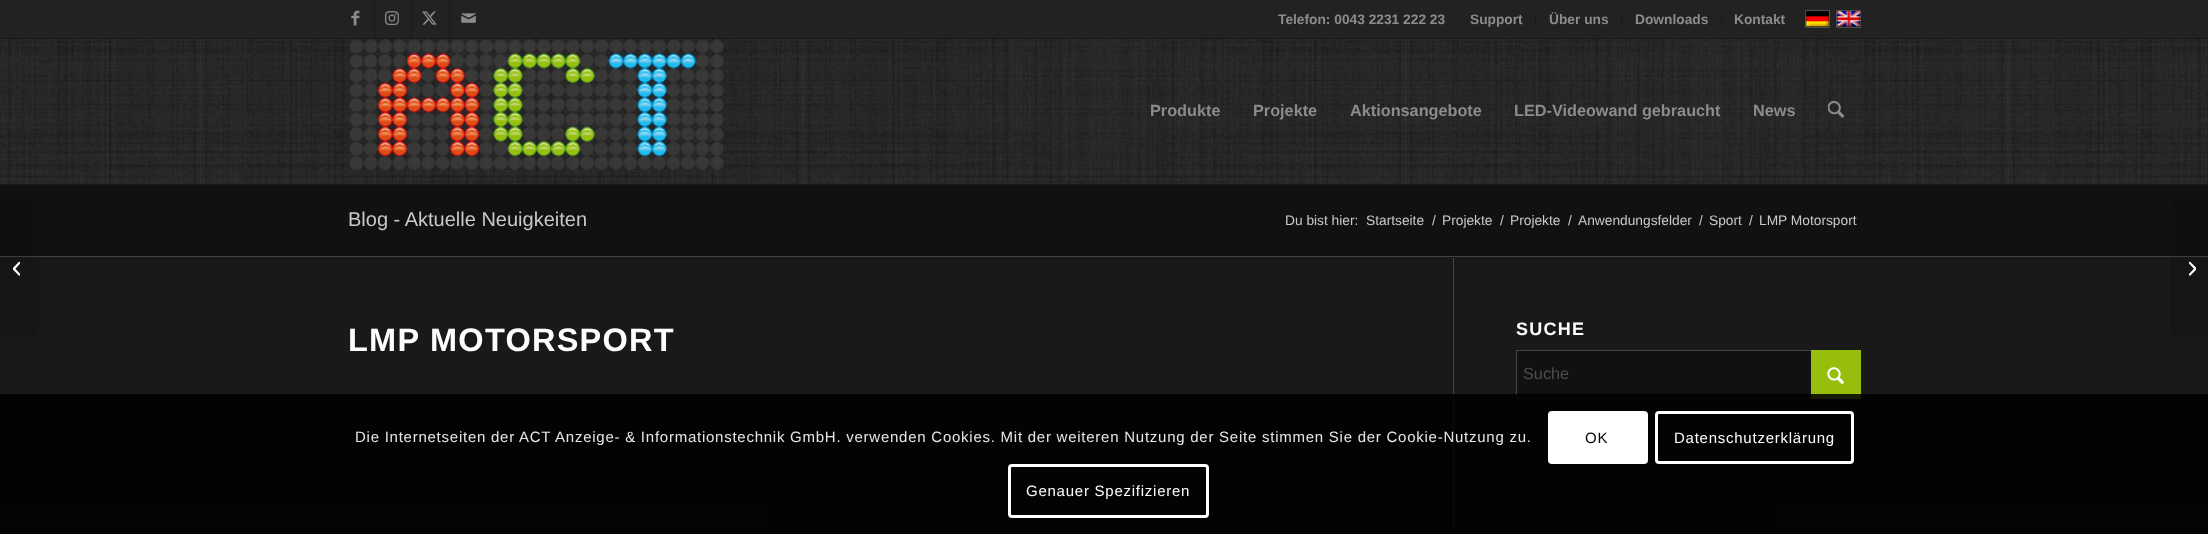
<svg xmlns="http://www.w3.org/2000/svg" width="2208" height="534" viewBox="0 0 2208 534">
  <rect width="100%" height="100%" fill="#191919"/>
  <rect x="0" y="0" width="2208" height="38" fill="#222222"/>
  <rect x="374" y="0" width="1" height="38" fill="#191919"/>
  <image x="351" y="10" width="9" height="16" href="img1.png"/>
  <rect x="411" y="0" width="1" height="38" fill="#191919"/>
  <image x="385" y="11" width="14" height="14" href="img2.png"/>
  <rect x="449" y="0" width="1" height="38" fill="#191919"/>
  <image x="422" y="11" width="15" height="14" href="img3.png"/>
  <image x="461" y="13" width="15" height="10" href="img4.png"/>
  <text x="1278" y="24" font-family="Liberation Sans" font-size="13.75" font-weight="bold" fill="#8c8c8c">Telefon: 0043 2231 222 23</text>
  <rect x="1535" y="13" width="1" height="12" fill="#191919"/>
  <text x="1470" y="24" font-family="Liberation Sans" font-size="13.75" font-weight="bold" fill="#8c8c8c">Support</text>
  <rect x="1621" y="13" width="1" height="12" fill="#191919"/>
  <text x="1549" y="24" font-family="Liberation Sans" font-size="13.75" font-weight="bold" fill="#8c8c8c">Über uns</text>
  <rect x="1721" y="13" width="1" height="12" fill="#191919"/>
  <text x="1635" y="24" font-family="Liberation Sans" font-size="13.75" font-weight="bold" fill="#8c8c8c">Downloads</text>
  <text x="1734" y="24" font-family="Liberation Sans" font-size="13.75" font-weight="bold" fill="#8c8c8c">Kontakt</text>
  <rect x="1805.5" y="10.5" width="24" height="17" fill="none" stroke="#4e4e4e"/>
  <image x="1805" y="11" width="24" height="16" href="img5.png"/>
  <rect x="1836.5" y="10.5" width="24" height="17" fill="none" stroke="#4e4e4e"/>
  <image x="1836" y="11" width="25" height="16" href="img6.png"/>
  <image x="0" y="39" width="2208" height="145" href="img7.png"/>
  <image x="349" y="39" width="375" height="131" href="img8.png"/>
  <text x="1150" y="116" font-family="Liberation Sans" font-size="16.25" font-weight="bold" fill="#8c8c8c">Produkte</text>
  <text x="1253" y="116" font-family="Liberation Sans" font-size="16.25" font-weight="bold" fill="#8c8c8c">Projekte</text>
  <text x="1350" y="116" font-family="Liberation Sans" font-size="16.25" font-weight="bold" fill="#8c8c8c">Aktionsangebote</text>
  <text x="1514" y="116" font-family="Liberation Sans" font-size="16.25" font-weight="bold" fill="#8c8c8c">LED-Videowand gebraucht</text>
  <text x="1753" y="116" font-family="Liberation Sans" font-size="16.25" font-weight="bold" fill="#8c8c8c">News</text>
  <image x="1828" y="101" width="17" height="17" href="img9.png"/>
  <rect x="0" y="185" width="2208" height="71" fill="#111111"/>
  <rect x="0" y="256" width="2208" height="1" fill="#444444"/>
  <path d="M0 199H34C37 199 39 201 39 204V331C39 334 37 336 34 336H0Z" fill="#000000" fill-opacity="0.1"/>
  <image x="13" y="261" width="7" height="15" href="img10.png"/>
  <text x="348" y="226" font-family="Liberation Sans" font-size="20" fill="#c9c9c9">Blog - Aktuelle Neuigkeiten</text>
  <text x="1285" y="225" font-family="Liberation Sans" font-size="13.75" fill="#c9c9c9">Du bist hier:</text>
  <text x="1366" y="225" font-family="Liberation Sans" font-size="13.75" fill="#c9c9c9">Startseite</text>
  <text x="1432" y="225" font-family="Liberation Sans" font-size="13.75" fill="#c9c9c9">/</text>
  <text x="1442" y="225" font-family="Liberation Sans" font-size="13.75" fill="#c9c9c9">Projekte</text>
  <text x="1500" y="225" font-family="Liberation Sans" font-size="13.75" fill="#c9c9c9">/</text>
  <text x="1510" y="225" font-family="Liberation Sans" font-size="13.75" fill="#c9c9c9">Projekte</text>
  <text x="1568" y="225" font-family="Liberation Sans" font-size="13.75" fill="#c9c9c9">/</text>
  <text x="1578" y="225" font-family="Liberation Sans" font-size="13.75" fill="#c9c9c9">Anwendungsfelder</text>
  <text x="1699" y="225" font-family="Liberation Sans" font-size="13.75" fill="#c9c9c9">/</text>
  <text x="1709" y="225" font-family="Liberation Sans" font-size="13.75" fill="#c9c9c9">Sport</text>
  <text x="1749" y="225" font-family="Liberation Sans" font-size="13.75" fill="#c9c9c9">/</text>
  <text x="1759" y="225" font-family="Liberation Sans" font-size="13.75" fill="#c9c9c9">LMP Motorsport</text>
  <rect x="1453" y="258" width="1" height="276" fill="#444444"/>
  <text x="348" y="351" font-family="Liberation Sans" font-size="32.5" font-weight="bold" letter-spacing="1.25" fill="#fdfdfd">LMP MOTORSPORT</text>
  <text x="1516" y="335" font-family="Liberation Sans" font-size="18" font-weight="bold" letter-spacing="1.25" fill="#fdfdfd">SUCHE</text>
  <rect x="1517" y="351" width="294" height="47" fill="#111111"/>
  <rect x="1516.5" y="350.5" width="344" height="48" fill="none" stroke="#444444"/>
  <text x="1523" y="379" font-family="Liberation Sans" font-size="16.25" fill="#4e4e4e">Suche</text>
  <rect x="1811" y="350" width="50" height="49" fill="#98be0d"/>
  <image x="1827" y="367" width="17" height="17" href="img11.png"/>
  <rect x="1516.5" y="533.5" width="142" height="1" fill="none" stroke="#444444"/>
  <rect x="1660.5" y="533.5" width="114" height="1" fill="none" stroke="#444444"/>
  <path d="M2175 199H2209V336H2175C2172 336 2170 334 2170 331V204C2170 201 2172 199 2175 199Z" fill="#000000" fill-opacity="0.1"/>
  <image x="2189" y="261" width="7" height="15" href="img12.png"/>
  <rect x="0" y="394" width="2208" height="140" fill="#000000" fill-opacity="0.85"/>
  <text x="355" y="442" font-family="Liberation Sans" font-size="15" letter-spacing="0.75" fill="#e6e6e6">Die Internetseiten der ACT Anzeige- &amp; Informationstechnik GmbH. verwenden Cookies. Mit der weiteren Nutzung der Seite stimmen Sie der Cookie-Nutzung zu.</text>
  <rect x="1548" y="411" width="100" height="53" rx="4" fill="#ffffff"/>
  <text x="1585" y="443" font-family="Liberation Sans" font-size="15" letter-spacing="0.75" fill="#000000">OK</text>
  <rect x="1656.5" y="412.5" width="196" height="50" rx="2.5" fill="none" stroke="#ffffff" stroke-width="3"/>
  <text x="1674" y="443" font-family="Liberation Sans" font-size="15" letter-spacing="0.75" fill="#fdfdfd">Datenschutzerklärung</text>
  <rect x="1009.5" y="465.5" width="198" height="51" rx="2.5" fill="none" stroke="#ffffff" stroke-width="3"/>
  <text x="1026" y="496" font-family="Liberation Sans" font-size="15" letter-spacing="0.75" fill="#fdfdfd">Genauer Spezifizieren</text>
</svg>
